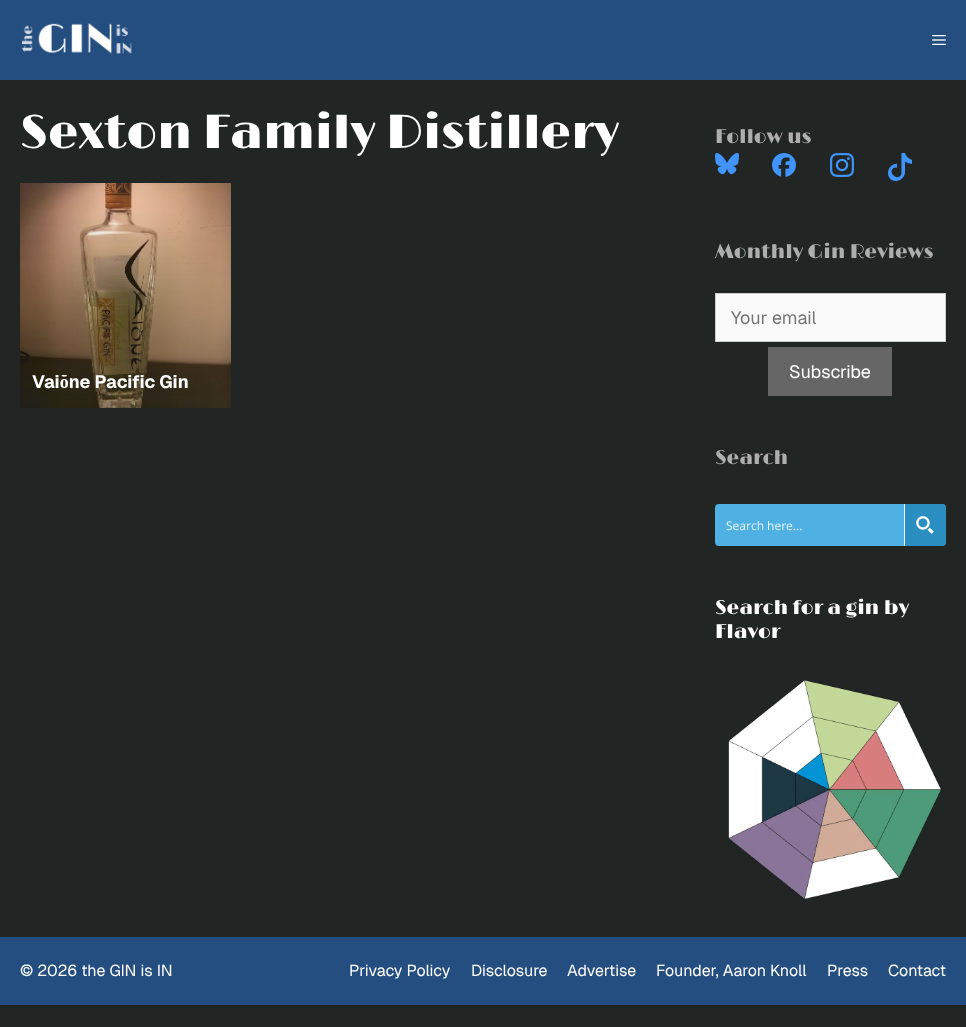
<svg xmlns="http://www.w3.org/2000/svg" width="966" height="1027" viewBox="0 0 966 1027">
  <rect width="100%" height="100%" fill="#212624"/>
  <rect x="0" y="0" width="966" height="80" fill="#254e80"/>
  <image x="21" y="23" width="111" height="31" href="img1.png"/>
  <image x="932" y="35" width="14" height="10" href="img2.png"/>
  <text x="20" y="148" font-family="Limelight" font-size="48" font-weight="300" fill="#ffffff">Sexton Family Distillery</text>
  <image x="20" y="183" width="211" height="225" href="img3.png"/>
  <text x="32" y="388" font-family="Geist" font-size="18" font-weight="bold" fill="#ffffff">Vaiŏne Pacific Gin</text>
  <text x="715" y="143" font-family="Limelight" font-size="20" font-weight="300" fill="#aeaeae">Follow us</text>
  <image x="715" y="153" width="24" height="22" href="img4.png"/>
  <image x="772" y="153" width="24" height="24" href="img5.png"/>
  <image x="830" y="153" width="24" height="24" href="img6.png"/>
  <image x="888" y="153" width="24" height="28" href="img7.png"/>
  <text x="715" y="258" font-family="Limelight" font-size="20" font-weight="300" fill="#aeaeae">Monthly Gin Reviews</text>
  <rect x="715.5" y="293.5" width="230" height="48" fill="#fafafa" stroke="#cccccc"/>
  <text x="731" y="324" font-family="Geist" font-size="18" fill="#757575">Your email</text>
  <rect x="768" y="347" width="124" height="49" fill="#666666"/>
  <text x="789" y="378" font-family="Geist" font-size="18" fill="#ffffff">Subscribe</text>
  <text x="715" y="464" font-family="Limelight" font-size="20" font-weight="300" fill="#aeaeae">Search</text>
  <rect x="715" y="504" width="231" height="42" rx="4" fill="#4fb1e3"/>
  <text x="726" y="530" font-family="Open Sans" font-size="12" fill="#e5f3fb">Search here...</text>
  <path d="M904 504H942C944 504 946 506 946 508V542C946 544 944 546 942 546H904Z" fill="#2b8ec1"/>
  <rect x="904" y="504" width="1" height="42" fill="#f1f1f1"/>
  <image x="916" y="516" width="18" height="18" href="img8.png"/>
  <text x="715" y="614" font-family="Limelight" font-size="20" font-weight="300" fill="#ffffff">Search for a gin by</text>
  <text x="715" y="638" font-family="Limelight" font-size="20" font-weight="300" fill="#ffffff">Flavor</text>
  <image x="728" y="680" width="214" height="219" href="img9.png"/>
  <rect x="0" y="937" width="966" height="68" fill="#254e80"/>
  <text x="20" y="976" font-family="Geist" font-size="16" fill="#ffffff">© 2026 the GIN is IN</text>
  <text x="349" y="976" font-family="Geist" font-size="16" fill="#ffffff">Privacy Policy</text>
  <text x="471" y="976" font-family="Geist" font-size="16" fill="#ffffff">Disclosure</text>
  <text x="567" y="976" font-family="Geist" font-size="16" fill="#ffffff">Advertise</text>
  <text x="656" y="976" font-family="Geist" font-size="16" fill="#ffffff">Founder, Aaron Knoll</text>
  <text x="827" y="976" font-family="Geist" font-size="16" fill="#ffffff">Press</text>
  <text x="888" y="976" font-family="Geist" font-size="16" fill="#ffffff">Contact</text>
</svg>
